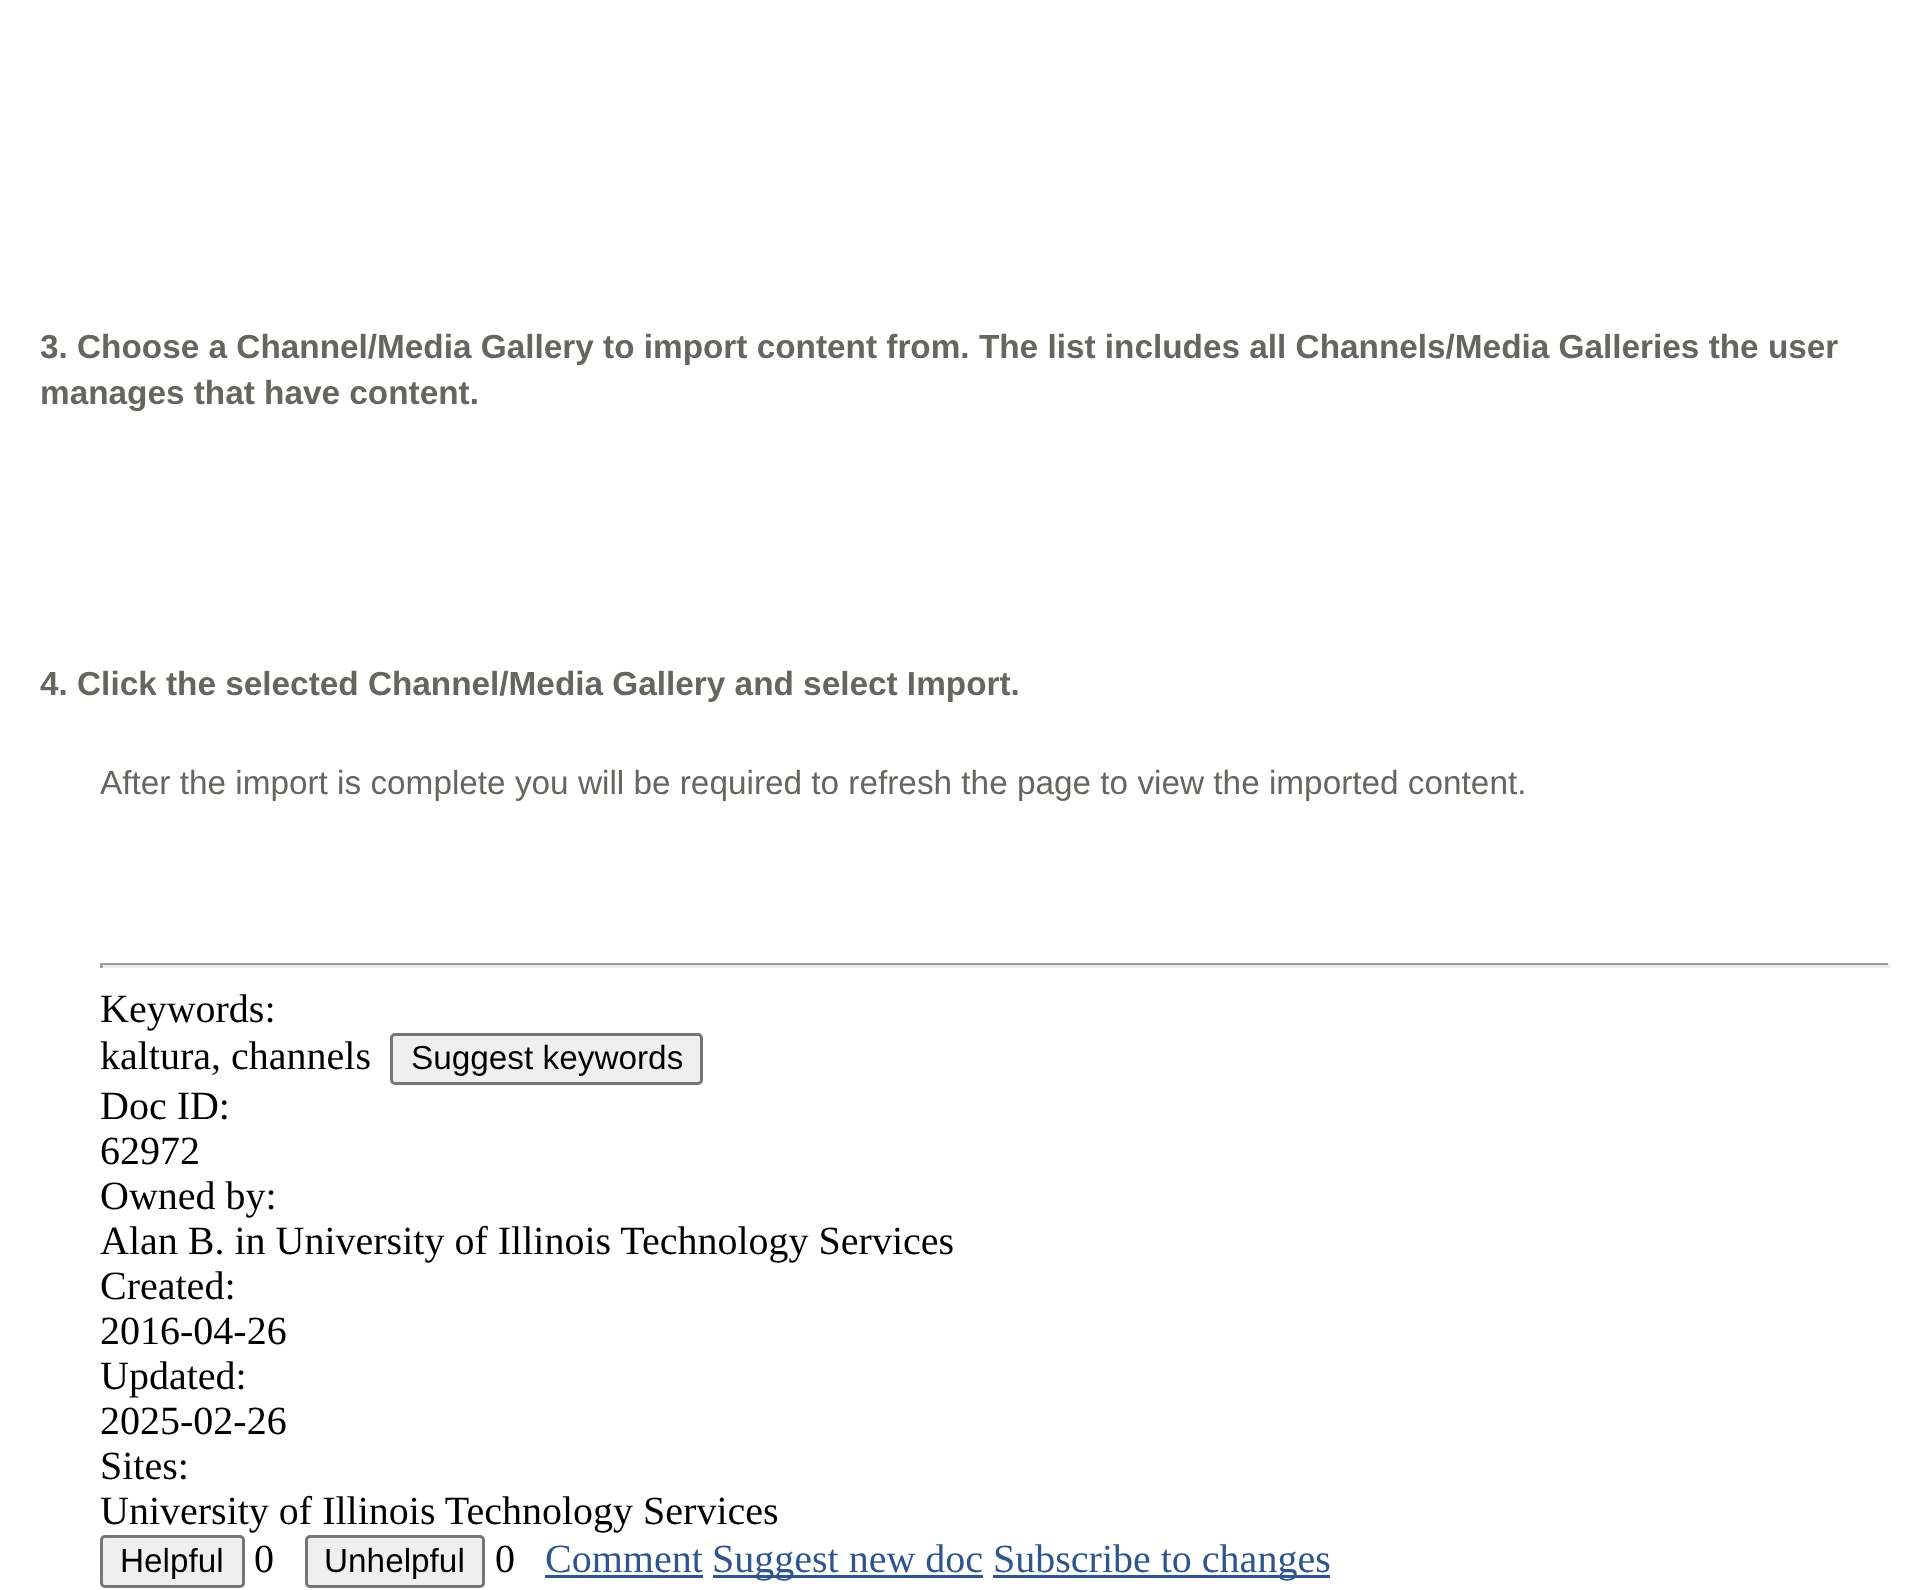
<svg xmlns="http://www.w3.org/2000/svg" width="1909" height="1590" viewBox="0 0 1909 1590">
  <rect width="100%" height="100%" fill="#ffffff"/>
  <text x="40" y="358" font-family="Liberation Sans" font-size="33.33" font-weight="bold" fill="#666560">3. Choose a Channel/Media Gallery to import content from. The list includes all Channels/Media Galleries the user</text>
  <text x="40" y="404" font-family="Liberation Sans" font-size="33.33" font-weight="bold" fill="#666560">manages that have content.</text>
  <text x="40" y="695" font-family="Liberation Sans" font-size="33.33" font-weight="bold" fill="#666560">4. Click the selected Channel/Media Gallery and select Import.</text>
  <text x="100" y="794" font-family="Liberation Sans" font-size="33.33" fill="#666560">After the import is complete you will be required to refresh the page to view the imported content.</text>
  <rect x="100" y="963" width="1790" height="2" fill="#9f9f9f"/>
  <rect x="1888" y="963" width="3" height="5" fill="#eeeeee"/>
  <rect x="100" y="965" width="1790" height="3" fill="#eeeeee"/>
  <rect x="100" y="963" width="3" height="5" fill="#9f9f9f"/>
  <text x="100" y="1022" font-family="Liberation Serif" font-size="40" fill="#000000">Keywords:</text>
  <text x="100" y="1069" font-family="Liberation Serif" font-size="40" fill="#000000">kaltura, channels</text>
  <rect x="391.5" y="1034.5" width="310" height="49" rx="3.5" fill="#efefef" stroke="#767676" stroke-width="3"/>
  <text x="411" y="1069" font-family="Liberation Sans" font-size="33.33" fill="#000000">Suggest keywords</text>
  <text x="100" y="1119" font-family="Liberation Serif" font-size="40" fill="#000000">Doc ID:</text>
  <text x="100" y="1164" font-family="Liberation Serif" font-size="40" fill="#000000">62972</text>
  <text x="100" y="1209" font-family="Liberation Serif" font-size="40" fill="#000000">Owned by:</text>
  <text x="100" y="1254" font-family="Liberation Serif" font-size="40" fill="#000000">Alan B. in University of Illinois Technology Services</text>
  <text x="100" y="1299" font-family="Liberation Serif" font-size="40" fill="#000000">Created:</text>
  <text x="100" y="1344" font-family="Liberation Serif" font-size="40" fill="#000000">2016-04-26</text>
  <text x="100" y="1389" font-family="Liberation Serif" font-size="40" fill="#000000">Updated:</text>
  <text x="100" y="1434" font-family="Liberation Serif" font-size="40" fill="#000000">2025-02-26</text>
  <text x="100" y="1479" font-family="Liberation Serif" font-size="40" fill="#000000">Sites:</text>
  <text x="100" y="1524" font-family="Liberation Serif" font-size="40" fill="#000000">University of Illinois Technology Services</text>
  <rect x="101.5" y="1536.5" width="142" height="50" rx="3.5" fill="#efefef" stroke="#767676" stroke-width="3"/>
  <text x="120" y="1572" font-family="Liberation Sans" font-size="33.33" fill="#000000">Helpful</text>
  <text x="254" y="1572" font-family="Liberation Serif" font-size="40" fill="#000000">0</text>
  <rect x="306.5" y="1536.5" width="177" height="50" rx="3.5" fill="#efefef" stroke="#767676" stroke-width="3"/>
  <text x="324" y="1572" font-family="Liberation Sans" font-size="33.33" fill="#000000">Unhelpful</text>
  <text x="495" y="1572" font-family="Liberation Serif" font-size="40" fill="#000000">0</text>
  <text x="545" y="1572" font-family="Liberation Serif" font-size="40" fill="#2f568c">Comment</text>
  <rect x="545" y="1575" width="158" height="3" fill="#2f568c"/>
  <rect x="713" y="1575" width="270" height="3" fill="#2f568c"/>
  <text x="712" y="1572" font-family="Liberation Serif" font-size="40" fill="#2f568c">Suggest new doc</text>
  <rect x="993" y="1575" width="337" height="3" fill="#2f568c"/>
  <text x="993" y="1572" font-family="Liberation Serif" font-size="40" fill="#2f568c">Subscribe to changes</text>
</svg>
